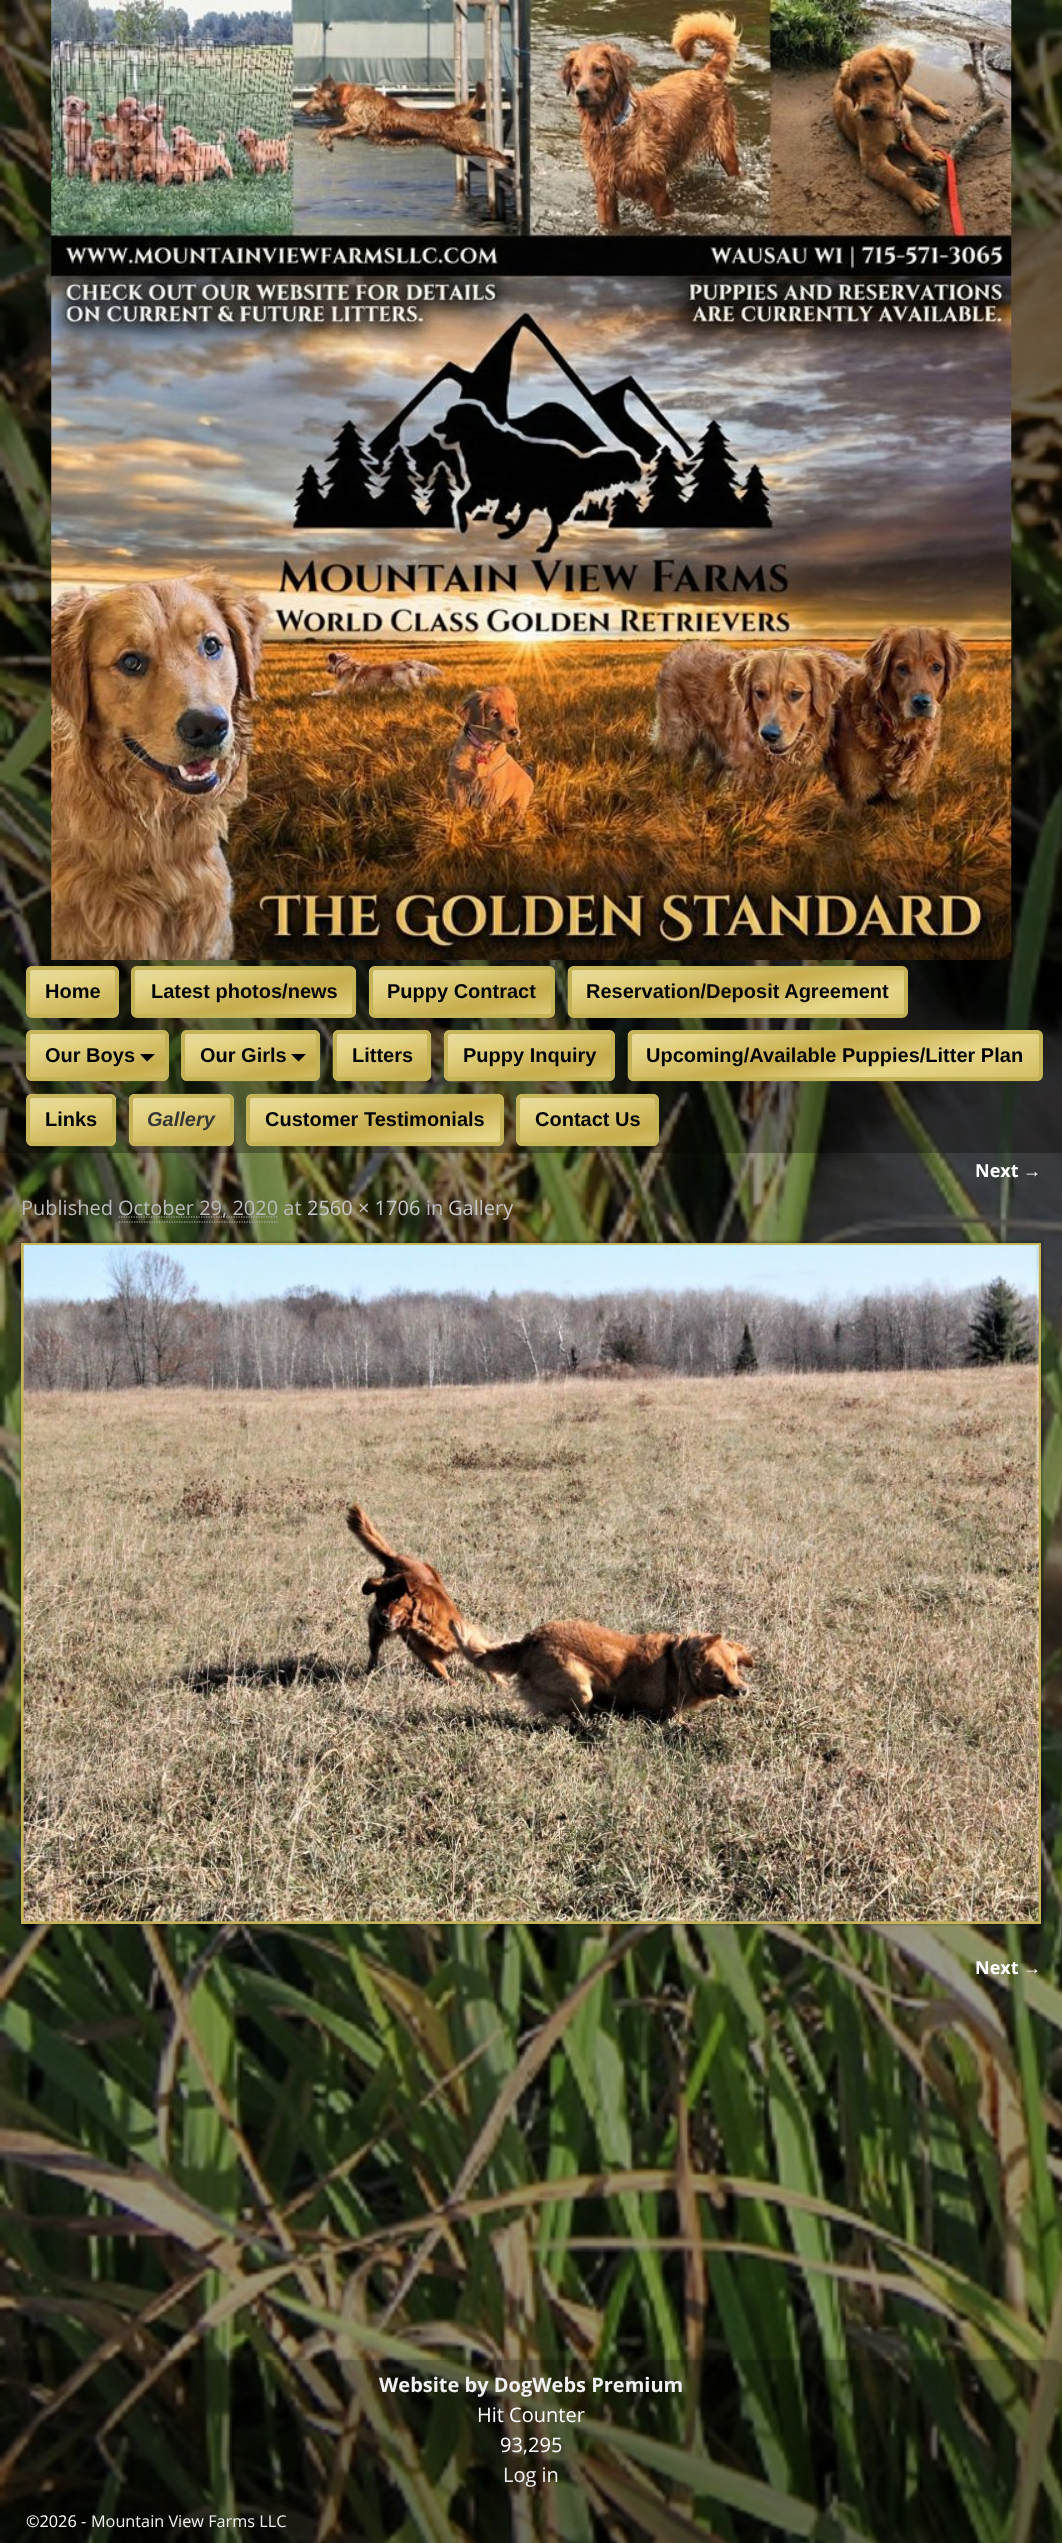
<svg xmlns="http://www.w3.org/2000/svg" width="1062" height="2543" viewBox="0 0 1062 2543">
  <defs>
    <filter id="blur1" x="-50%" y="-200%" width="200%" height="500%"><feGaussianBlur stdDeviation="1"/></filter>
    <clipPath id="clip1"><path d="M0 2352H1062V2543H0ZM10 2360H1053C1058.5 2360 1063 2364.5 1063 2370V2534C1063 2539.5 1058.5 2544 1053 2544H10C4.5 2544 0 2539.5 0 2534V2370C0 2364.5 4.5 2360 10 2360Z" clip-rule="evenodd"/></clipPath>
    <filter id="blur2" x="-50%" y="-200%" width="200%" height="500%"><feGaussianBlur stdDeviation="2"/></filter>
  </defs>
  <rect width="100%" height="100%" fill="#ffffff"/>
  <image x="0" y="0" width="1062" height="2543" href="img1.png"/>
  <rect x="0" y="0" width="1062" height="1153" fill="#000000" fill-opacity="0.3"/>
  <image x="51" y="0" width="961" height="960" href="img2.png"/>
  <image x="26" y="966" width="93" height="52" href="img3.png"/>
  <rect x="28" y="968" width="89" height="48" rx="4" fill="none" stroke="#c5b358" stroke-width="4"/>
  <text x="45" y="998" font-family="Liberation Sans" font-size="20" font-weight="bold" fill="#000000">Home</text>
  <image x="131" y="966" width="226" height="52" href="img4.png"/>
  <rect x="133" y="968" width="221" height="48" rx="4" fill="none" stroke="#c5b358" stroke-width="4"/>
  <text x="151" y="998" font-family="Liberation Sans" font-size="20" font-weight="bold" fill="#000000">Latest photos/news</text>
  <image x="368" y="966" width="187" height="52" href="img5.png"/>
  <rect x="371" y="968" width="182" height="48" rx="4" fill="none" stroke="#c5b358" stroke-width="4"/>
  <text x="387" y="998" font-family="Liberation Sans" font-size="20" font-weight="bold" fill="#000000">Puppy Contract</text>
  <image x="567" y="966" width="341" height="52" href="img6.png"/>
  <rect x="570" y="968" width="336" height="48" rx="4" fill="none" stroke="#c5b358" stroke-width="4"/>
  <text x="586" y="998" font-family="Liberation Sans" font-size="20" font-weight="bold" fill="#000000">Reservation/Deposit Agreement</text>
  <image x="26" y="1030" width="143" height="52" href="img7.png"/>
  <rect x="28" y="1032" width="139" height="47" rx="4" fill="none" stroke="#c5b358" stroke-width="4"/>
  <text x="45" y="1062" font-family="Liberation Sans" font-size="20" font-weight="bold" fill="#000000">Our Boys</text>
  <path d="M140 1054H155L147 1061.5Z" fill="#000000"/>
  <image x="181" y="1030" width="139" height="52" href="img8.png"/>
  <rect x="183" y="1032" width="135" height="47" rx="4" fill="none" stroke="#c5b358" stroke-width="4"/>
  <text x="200" y="1062" font-family="Liberation Sans" font-size="20" font-weight="bold" fill="#000000">Our Girls</text>
  <path d="M291 1054H306L298.5 1061.5Z" fill="#000000"/>
  <image x="332" y="1030" width="100" height="52" href="img9.png"/>
  <rect x="335" y="1032" width="94" height="47" rx="4" fill="none" stroke="#c5b358" stroke-width="4"/>
  <text x="352" y="1062" font-family="Liberation Sans" font-size="20" font-weight="bold" fill="#000000">Litters</text>
  <image x="443" y="1030" width="172" height="52" href="img10.png"/>
  <rect x="446" y="1032" width="167" height="47" rx="4" fill="none" stroke="#c5b358" stroke-width="4"/>
  <text x="463" y="1062" font-family="Liberation Sans" font-size="20" font-weight="bold" fill="#000000">Puppy Inquiry</text>
  <image x="627" y="1030" width="416" height="52" href="img11.png"/>
  <rect x="630" y="1032" width="411" height="47" rx="4" fill="none" stroke="#c5b358" stroke-width="4"/>
  <text x="646" y="1062" font-family="Liberation Sans" font-size="20" font-weight="bold" fill="#000000">Upcoming/Available Puppies/Litter Plan</text>
  <image x="26" y="1093" width="91" height="54" href="img12.png"/>
  <rect x="28" y="1096" width="86" height="48" rx="4" fill="none" stroke="#c5b358" stroke-width="4"/>
  <text x="45" y="1126" font-family="Liberation Sans" font-size="20" font-weight="bold" fill="#000000">Links</text>
  <image x="128" y="1093" width="106" height="54" href="img13.png"/>
  <rect x="131" y="1096" width="101" height="48" rx="4" fill="none" stroke="#c5b358" stroke-width="4"/>
  <text x="147" y="1126" font-family="Liberation Sans" font-size="20" font-weight="bold" font-style="italic" fill="#363636">Gallery</text>
  <image x="246" y="1093" width="258" height="54" href="img14.png"/>
  <rect x="248" y="1096" width="254" height="48" rx="4" fill="none" stroke="#c5b358" stroke-width="4"/>
  <text x="265" y="1126" font-family="Liberation Sans" font-size="20" font-weight="bold" fill="#000000">Customer Testimonials</text>
  <image x="516" y="1093" width="143" height="54" href="img15.png"/>
  <rect x="518" y="1096" width="139" height="48" rx="4" fill="none" stroke="#c5b358" stroke-width="4"/>
  <text x="535" y="1126" font-family="Liberation Sans" font-size="20" font-weight="bold" fill="#000000">Contact Us</text>
  <text x="975" y="1177" font-family="Open Sans" font-size="18" font-weight="bold" fill="#ffffff">Next</text>
  <text x="1023" y="1177" font-family="Liberation Sans" font-size="18" font-weight="bold" fill="#ffffff">→</text>
  <text x="21" y="1215" font-family="Open Sans" font-size="20" fill="#bbbbbb">Published</text>
  <path d="M118.5 1217H278.5" fill="none" stroke="#bbbbbb" stroke-width="1.2" stroke-dasharray="1.25 1.25"/>
  <text x="118" y="1215" font-family="Open Sans" font-size="20" fill="#bbbbbb">October 29, 2020 at</text>
  <path d="M119 1222H279" fill="none" stroke="#bbbbbb" stroke-width="1.2" stroke-dasharray="1.25 1.25"/>
  <text x="307" y="1215" font-family="Open Sans" font-size="20" fill="#c7c7c7">2560 × 1706</text>
  <text x="426" y="1215" font-family="Open Sans" font-size="20" fill="#bbbbbb">in</text>
  <text x="448" y="1215" font-family="Open Sans" font-size="20" fill="#c7c7c7">Gallery</text>
  <rect x="20" y="1241" width="1023" height="684" fill="#000000" fill-opacity="0.25" filter="url(#blur1)"/>
  <rect x="21" y="1243" width="1020" height="681" fill="#c5b358"/>
  <image x="23" y="1245" width="1016" height="677" href="img16.png"/>
  <text x="975" y="1974" font-family="Open Sans" font-size="18" font-weight="bold" fill="#ffffff">Next</text>
  <text x="1023" y="1974" font-family="Liberation Sans" font-size="18" font-weight="bold" fill="#ffffff">→</text>
  <g clip-path="url(#clip1)">
    <rect x="-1" y="2359" width="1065" height="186" rx="11" fill="#000000" fill-opacity="0.25" filter="url(#blur2)"/>
  </g>
  <rect x="0" y="2360" width="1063" height="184" rx="10" fill="#000000" fill-opacity="0.3"/>
  <text x="379" y="2392" font-family="Open Sans" font-size="20" font-weight="bold" fill="#f0f0f0">Website by DogWebs Premium</text>
  <text x="477" y="2422" font-family="Open Sans" font-size="20" fill="#ffffff">Hit Counter</text>
  <text x="500" y="2452" font-family="Open Sans" font-size="20" fill="#ffffff">93,295</text>
  <text x="503" y="2482" font-family="Open Sans" font-size="20" fill="#f0f0f0">Log in</text>
  <text x="26" y="2527" font-family="Open Sans" font-size="16.25" fill="#ffffff">©2026 -</text>
  <text x="91" y="2527" font-family="Open Sans" font-size="16.25" fill="#f0f0f0">Mountain View Farms LLC</text>
</svg>
